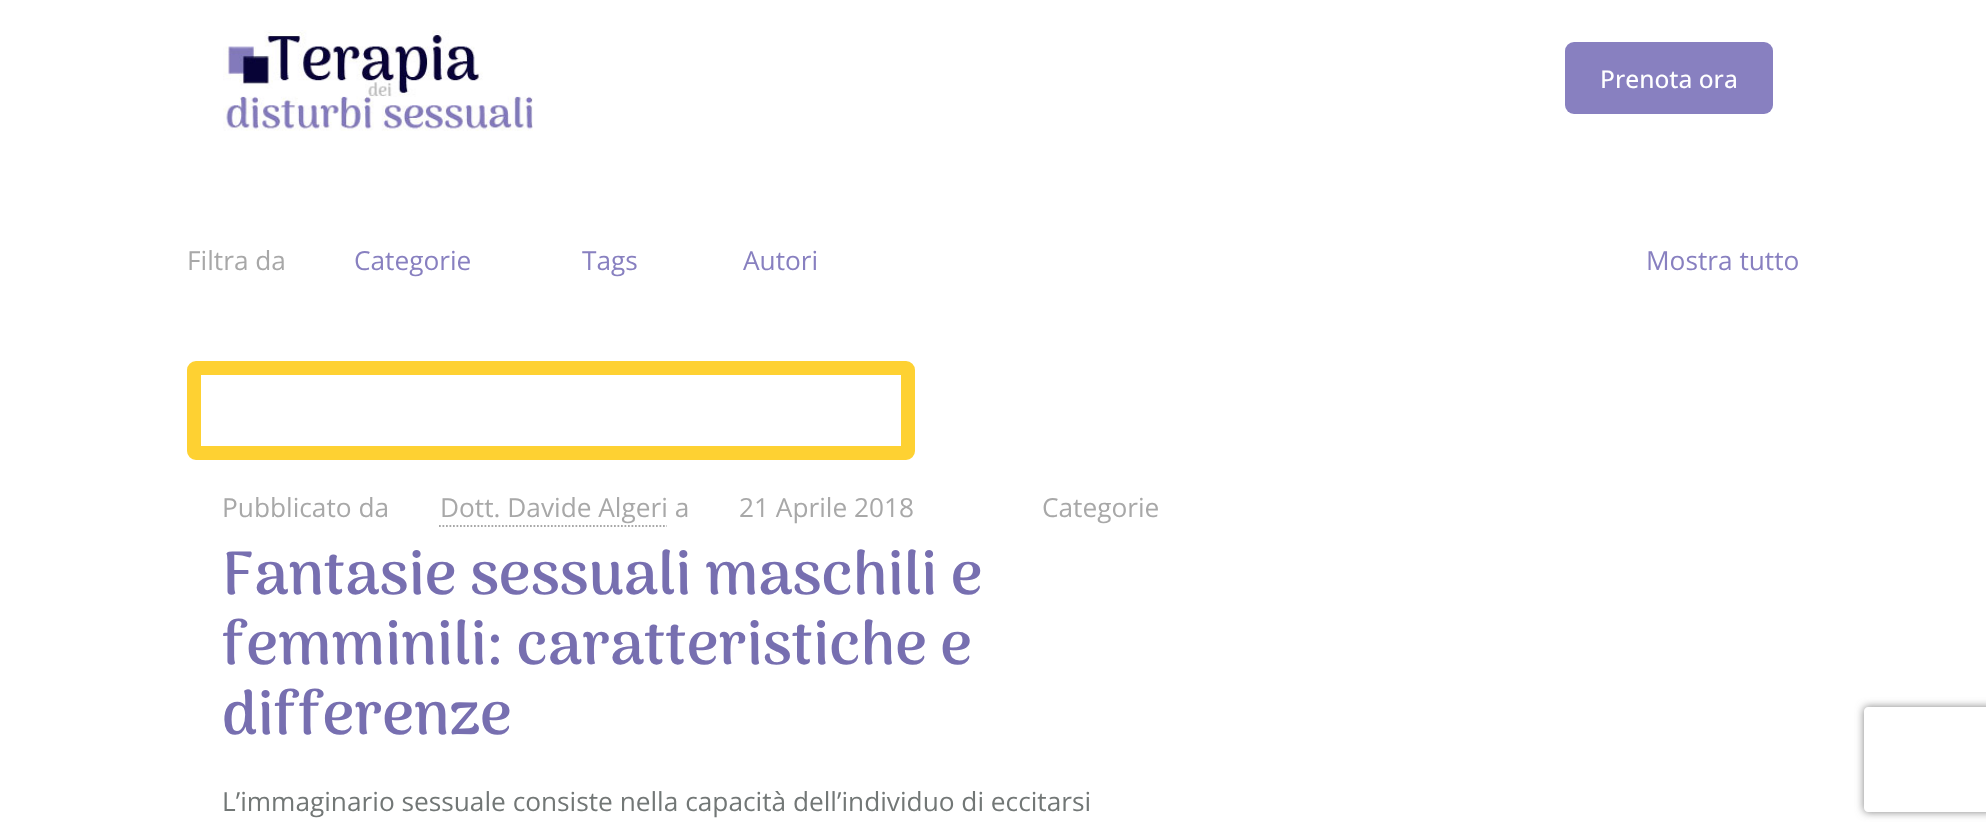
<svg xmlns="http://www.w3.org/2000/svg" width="1986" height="836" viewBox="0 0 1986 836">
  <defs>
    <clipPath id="clip1"><path d="M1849 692H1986V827H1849ZM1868 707H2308C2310 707 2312 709 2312 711V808C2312 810 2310 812 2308 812H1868C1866 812 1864 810 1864 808V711C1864 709 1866 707 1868 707Z" clip-rule="evenodd"/></clipPath>
    <filter id="blur1" x="-50%" y="-200%" width="200%" height="500%"><feGaussianBlur stdDeviation="4.5"/></filter>
  </defs>
  <rect width="100%" height="100%" fill="#ffffff"/>
  <image x="223" y="30" width="310" height="101" href="img1.png"/>
  <rect x="1565" y="42" width="208" height="72" rx="9" fill="#8880c0"/>
  <text x="1600" y="88" font-family="Open Sans" font-size="24.5" font-weight="500" fill="#ffffff">Prenota ora</text>
  <text x="187" y="270" font-family="Open Sans" font-size="26.25" fill="#a8a8a8">Filtra da</text>
  <text x="354" y="270" font-family="Open Sans" font-size="26.25" fill="#8880c0">Categorie</text>
  <text x="582" y="270" font-family="Open Sans" font-size="26.25" fill="#8880c0">Tags</text>
  <text x="743" y="270" font-family="Open Sans" font-size="26.25" fill="#8880c0">Autori</text>
  <text x="1646" y="270" font-family="Open Sans" font-size="26.25" fill="#8880c0">Mostra tutto</text>
  <rect x="194" y="368" width="714" height="85" rx="2" fill="none" stroke="#fed132" stroke-width="14"/>
  <text x="222" y="517" font-family="Open Sans" font-size="26.25" fill="#a8a8a8">Pubblicato da</text>
  <text x="440" y="517" font-family="Open Sans" font-size="26.25" fill="#a8a8a8">Dott. Davide Algeri a</text>
  <path d="M439 526H667" fill="none" stroke="#a8a8a8" stroke-width="1.8" stroke-dasharray="1.75 1.75"/>
  <text x="739" y="517" font-family="Open Sans" font-size="26.25" fill="#a8a8a8">21 Aprile 2018</text>
  <text x="1042" y="517" font-family="Open Sans" font-size="26.25" fill="#a8a8a8">Categorie</text>
  <text x="222" y="594" font-family="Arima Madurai" font-size="61.25" font-weight="bold" fill="#776fb0">Fantasie sessuali maschili e</text>
  <text x="222" y="664" font-family="Arima Madurai" font-size="61.25" font-weight="bold" fill="#776fb0">femminili: caratteristiche e</text>
  <text x="222" y="734" font-family="Arima Madurai" font-size="61.25" font-weight="bold" fill="#776fb0">differenze</text>
  <text x="222" y="811" font-family="Open Sans" font-size="26.25" fill="#727776">L’immaginario sessuale consiste nella capacità dell’individuo di eccitarsi</text>
  <g clip-path="url(#clip1)">
    <rect x="1864" y="707" width="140" height="105" rx="4" fill="#808080" filter="url(#blur1)"/>
  </g>
</svg>
